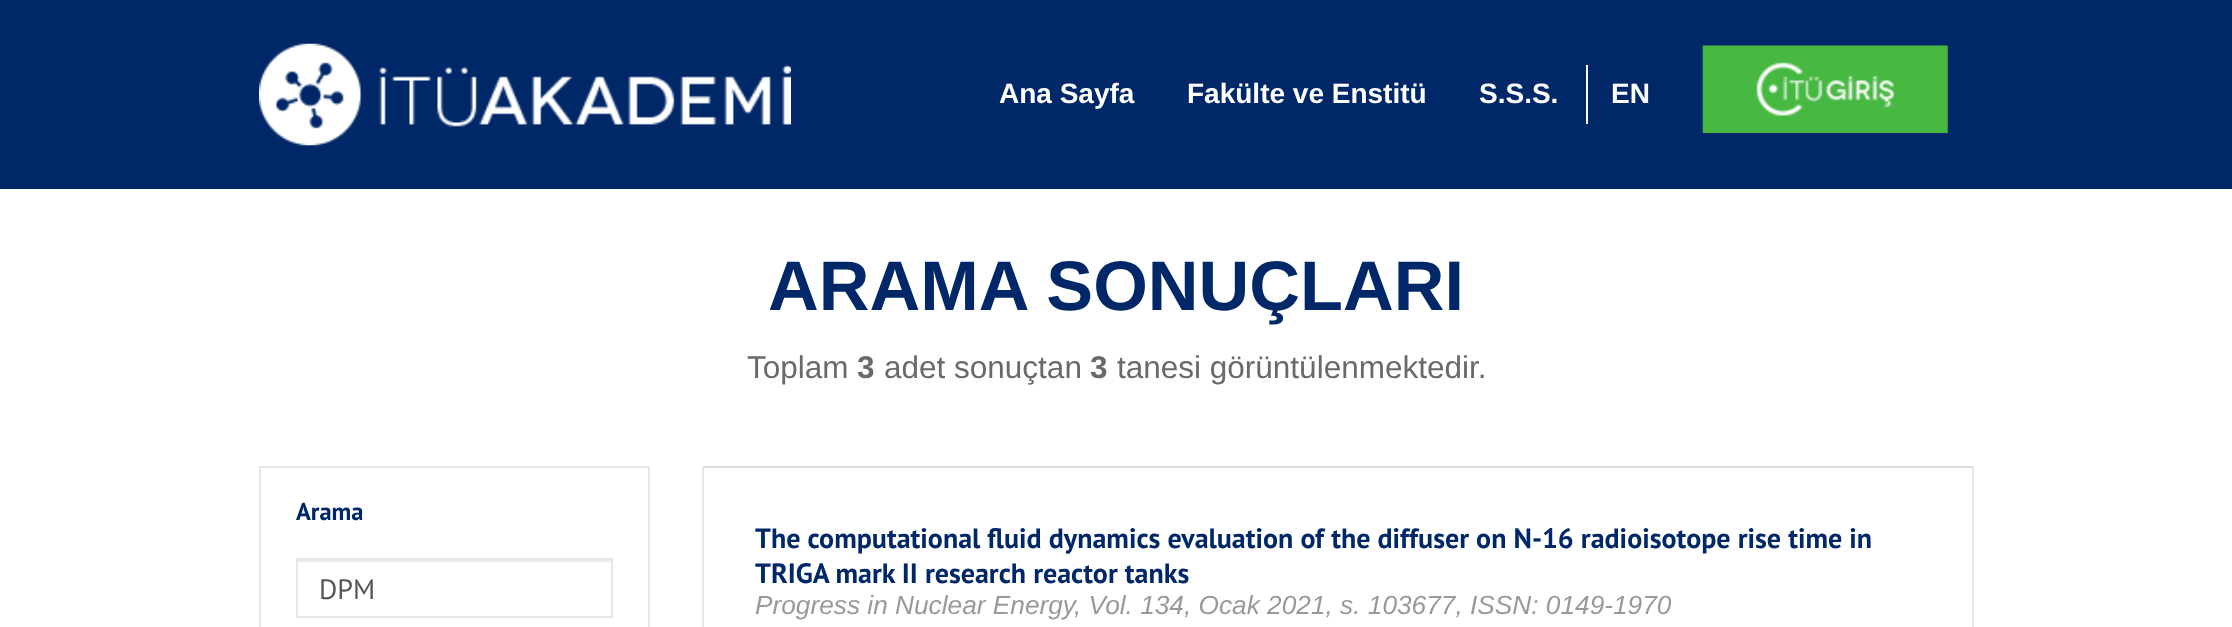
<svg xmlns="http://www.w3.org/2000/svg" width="2232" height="627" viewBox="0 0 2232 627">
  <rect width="100%" height="100%" fill="#ffffff"/>
  <rect x="0" y="0" width="2232" height="189" fill="#002868"/>
  <image x="259" y="43" width="532" height="103" href="img1.png"/>
  <text x="999" y="103" font-family="Liberation Sans" font-size="28" font-weight="bold" fill="#ffffff">Ana Sayfa</text>
  <text x="1187" y="103" font-family="Liberation Sans" font-size="28" font-weight="bold" fill="#ffffff">Fakülte ve Enstitü</text>
  <text x="1479" y="103" font-family="Liberation Sans" font-size="28" font-weight="bold" fill="#ffffff">S.S.S.</text>
  <rect x="1586" y="65" width="2" height="59" fill="#ffffff"/>
  <text x="1611" y="103" font-family="Liberation Sans" font-size="28" font-weight="bold" fill="#ffffff">EN</text>
  <image x="1702" y="45" width="246" height="88" href="img2.png"/>
  <text x="768" y="310" font-family="Liberation Sans" font-size="70.25" font-weight="bold" fill="#002868">ARAMA SONUÇLARI</text>
  <text x="747" y="378" font-family="Liberation Sans" font-size="31.5" fill="#696969">Toplam</text>
  <text x="857" y="378" font-family="Liberation Sans" font-size="31.5" font-weight="bold" fill="#696969">3</text>
  <text x="884" y="378" font-family="Liberation Sans" font-size="31.5" fill="#696969">adet sonuçtan</text>
  <text x="1090" y="378" font-family="Liberation Sans" font-size="31.5" font-weight="bold" fill="#696969">3</text>
  <text x="1117" y="378" font-family="Liberation Sans" font-size="31.5" fill="#696969">tanesi görüntülenmektedir.</text>
  <rect x="259" y="466" width="390" height="2" fill="#e7e7e7"/>
  <rect x="648" y="466" width="2" height="161" fill="#e7e7e7"/>
  <rect x="259" y="466" width="2" height="161" fill="#e7e7e7"/>
  <text x="296" y="520" font-family="PT Sans" font-size="24.5" font-weight="bold" fill="#002868">Arama</text>
  <rect x="298" y="560" width="313" height="2" fill="#ececec"/>
  <rect x="297" y="559" width="315" height="58" fill="none" stroke="#e7e7e7" stroke-width="2"/>
  <text x="319" y="599" font-family="PT Sans" font-size="28" fill="#555555">DPM</text>
  <rect x="702" y="466" width="1272" height="2" fill="#dddddd"/>
  <rect x="1972" y="466" width="2" height="161" fill="#e7e7e7"/>
  <rect x="702" y="466" width="2" height="161" fill="#e7e7e7"/>
  <text x="755" y="548" font-family="PT Sans" font-size="28" font-weight="bold" fill="#002868">The computational fluid dynamics evaluation of the diffuser on N-16 radioisotope rise time in</text>
  <text x="755" y="583" font-family="PT Sans" font-size="28" font-weight="bold" fill="#002868">TRIGA mark II research reactor tanks</text>
  <text x="755" y="614" font-family="Liberation Sans" font-size="26.25" font-style="italic" fill="#999999">Progress in Nuclear Energy, Vol. 134, Ocak 2021, s. 103677, ISSN: 0149-1970</text>
</svg>
